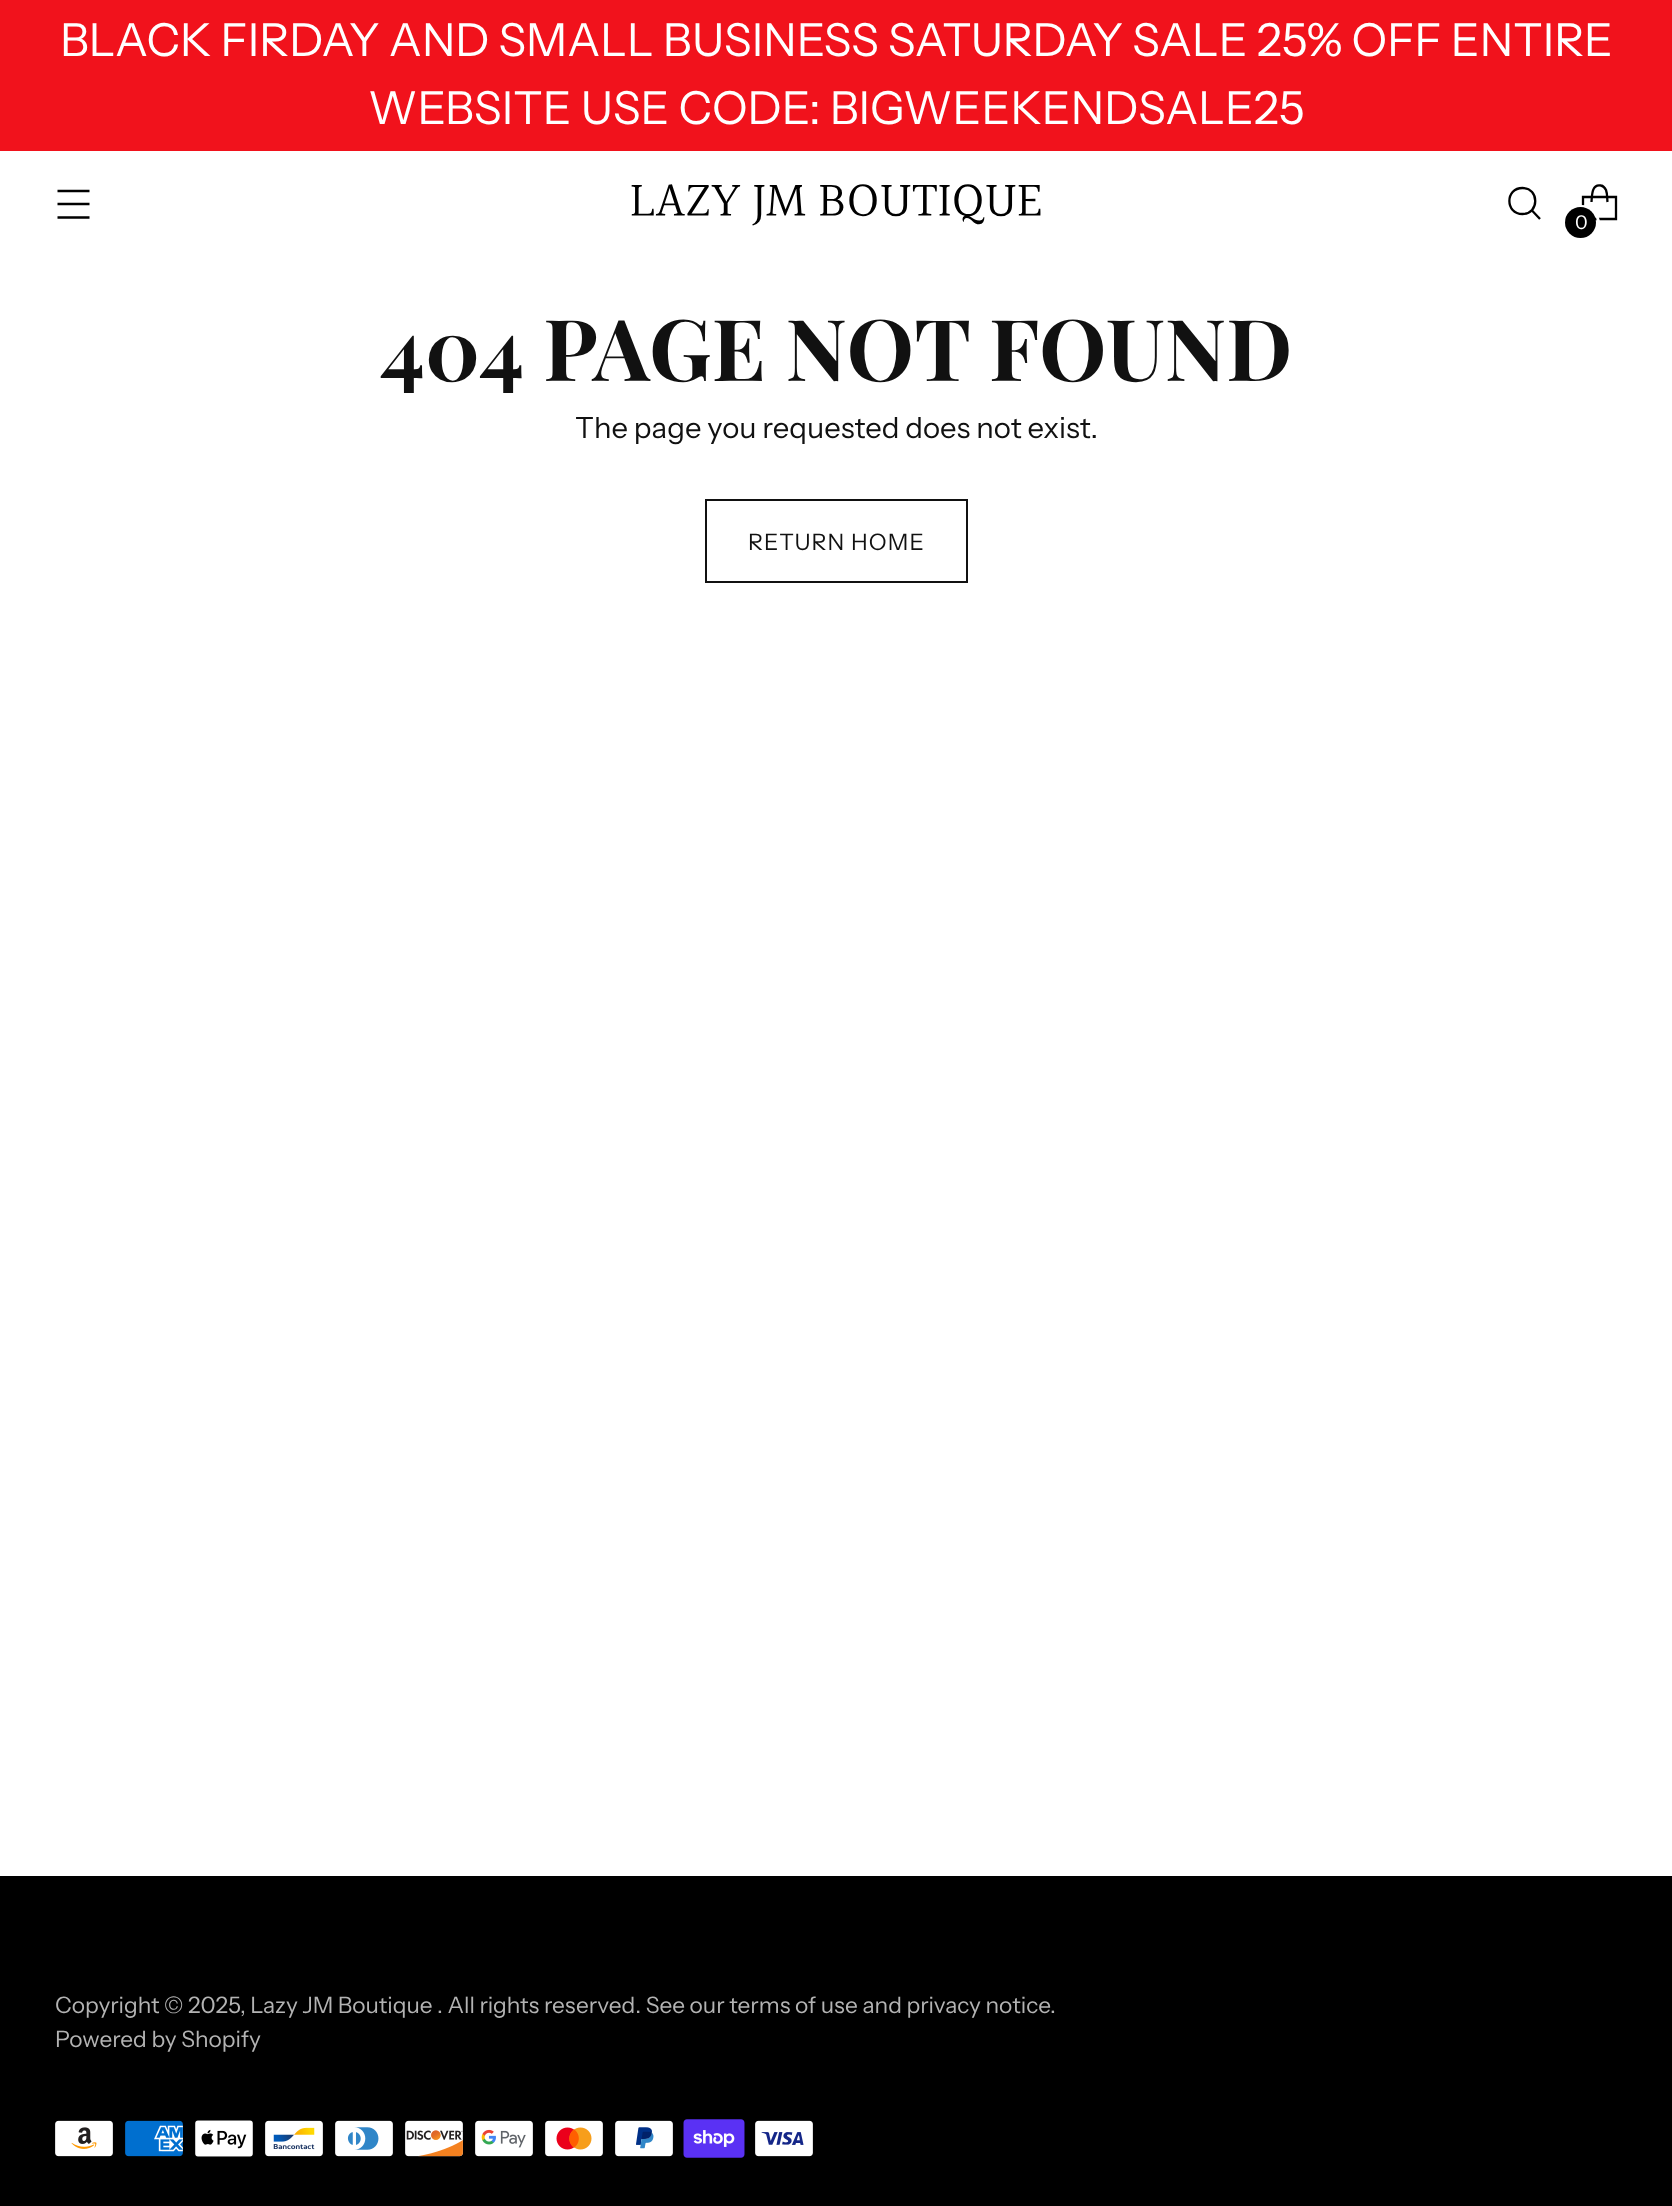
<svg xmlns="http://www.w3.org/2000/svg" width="1672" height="2206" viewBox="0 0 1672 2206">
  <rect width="100%" height="100%" fill="#ffffff"/>
  <rect x="0" y="0" width="1672" height="151" fill="#f1121c"/>
  <text x="60" y="56" font-family="Instrument Sans" font-size="45.4" fill="#ffffff">BLACK FIRDAY AND SMALL BUSINESS SATURDAY SALE 25% OFF ENTIRE</text>
  <text x="368" y="124" font-family="Instrument Sans" font-size="45.4" fill="#ffffff">WEBSITE USE CODE: BIGWEEKENDSALE25</text>
  <path d="M57.5 204H89.5M57.5 191H89.5M57.5 217.5H89.5" fill="none" stroke="#000000" stroke-width="2.3"/>
  <text x="630" y="218" font-family="Halant" font-size="50" fill="#000000">LAZY JM BOUTIQUE</text>
  <path d="M1522.5 214C1539.5 214 1539.5 188 1522.5 188C1505 188 1505 214 1522.5 214Z" fill="none" stroke="#000000" stroke-width="2.3" stroke-linecap="round"/>
  <path d="M1532 210.5L1540 219" fill="none" stroke="#000000" stroke-width="2.3"/>
  <path d="M1607.5 202C1607 198 1607.5 194 1606 190C1605 188 1603.5 186 1601 185.5C1591.5 183.5 1592 196 1591.5 202" fill="none" stroke="#000000" stroke-width="2.3" stroke-linejoin="bevel"/>
  <path d="M1616 219V197H1583V219Z" fill="none" stroke="#000000" stroke-width="2.3"/>
  <circle cx="1581.5" cy="223.5" r="17" fill="none" stroke="#ffffff" stroke-width="3"/>
  <circle cx="1580.5" cy="222.5" r="15.5" fill="#000000"/>
  <text x="1575" y="229" font-family="Instrument Sans" font-size="19" fill="#ffffff">0</text>
  <text x="380" y="381" font-family="Playfair Display" font-size="85.25" font-weight="bold" fill="#111111">404 PAGE NOT FOUND</text>
  <text x="575" y="438" font-family="Instrument Sans" font-size="29.25" fill="#111111">The page you requested does not exist.</text>
  <rect x="706" y="500" width="261" height="82" fill="none" stroke="#111111" stroke-width="2"/>
  <text x="748" y="550" font-family="Instrument Sans" font-size="22.7" letter-spacing="1.1" fill="#111111">RETURN HOME</text>
  <rect x="0" y="1876" width="1672" height="330" fill="#000000"/>
  <text x="55" y="2013" font-family="Instrument Sans" font-size="22.7" fill="#b3b3b3">Copyright © 2025, Lazy JM Boutique . All rights reserved. See our terms of use and privacy notice.</text>
  <text x="55" y="2047" font-family="Instrument Sans" font-size="22.7" fill="#b3b3b3">Powered by Shopify</text>
  <image x="55" y="2120" width="58" height="37" href="img1.png"/>
  <image x="125" y="2120" width="58" height="37" href="img2.png"/>
  <image x="195" y="2120" width="58" height="37" href="img3.png"/>
  <image x="265" y="2120" width="58" height="37" href="img4.png"/>
  <image x="335" y="2120" width="58" height="37" href="img5.png"/>
  <image x="405" y="2120" width="58" height="37" href="img6.png"/>
  <image x="475" y="2120" width="58" height="37" href="img7.png"/>
  <image x="545" y="2120" width="58" height="37" href="img8.png"/>
  <image x="615" y="2120" width="58" height="37" href="img9.png"/>
  <image x="683" y="2119" width="62" height="39" href="img10.png"/>
  <image x="755" y="2120" width="58" height="37" href="img11.png"/>
</svg>
